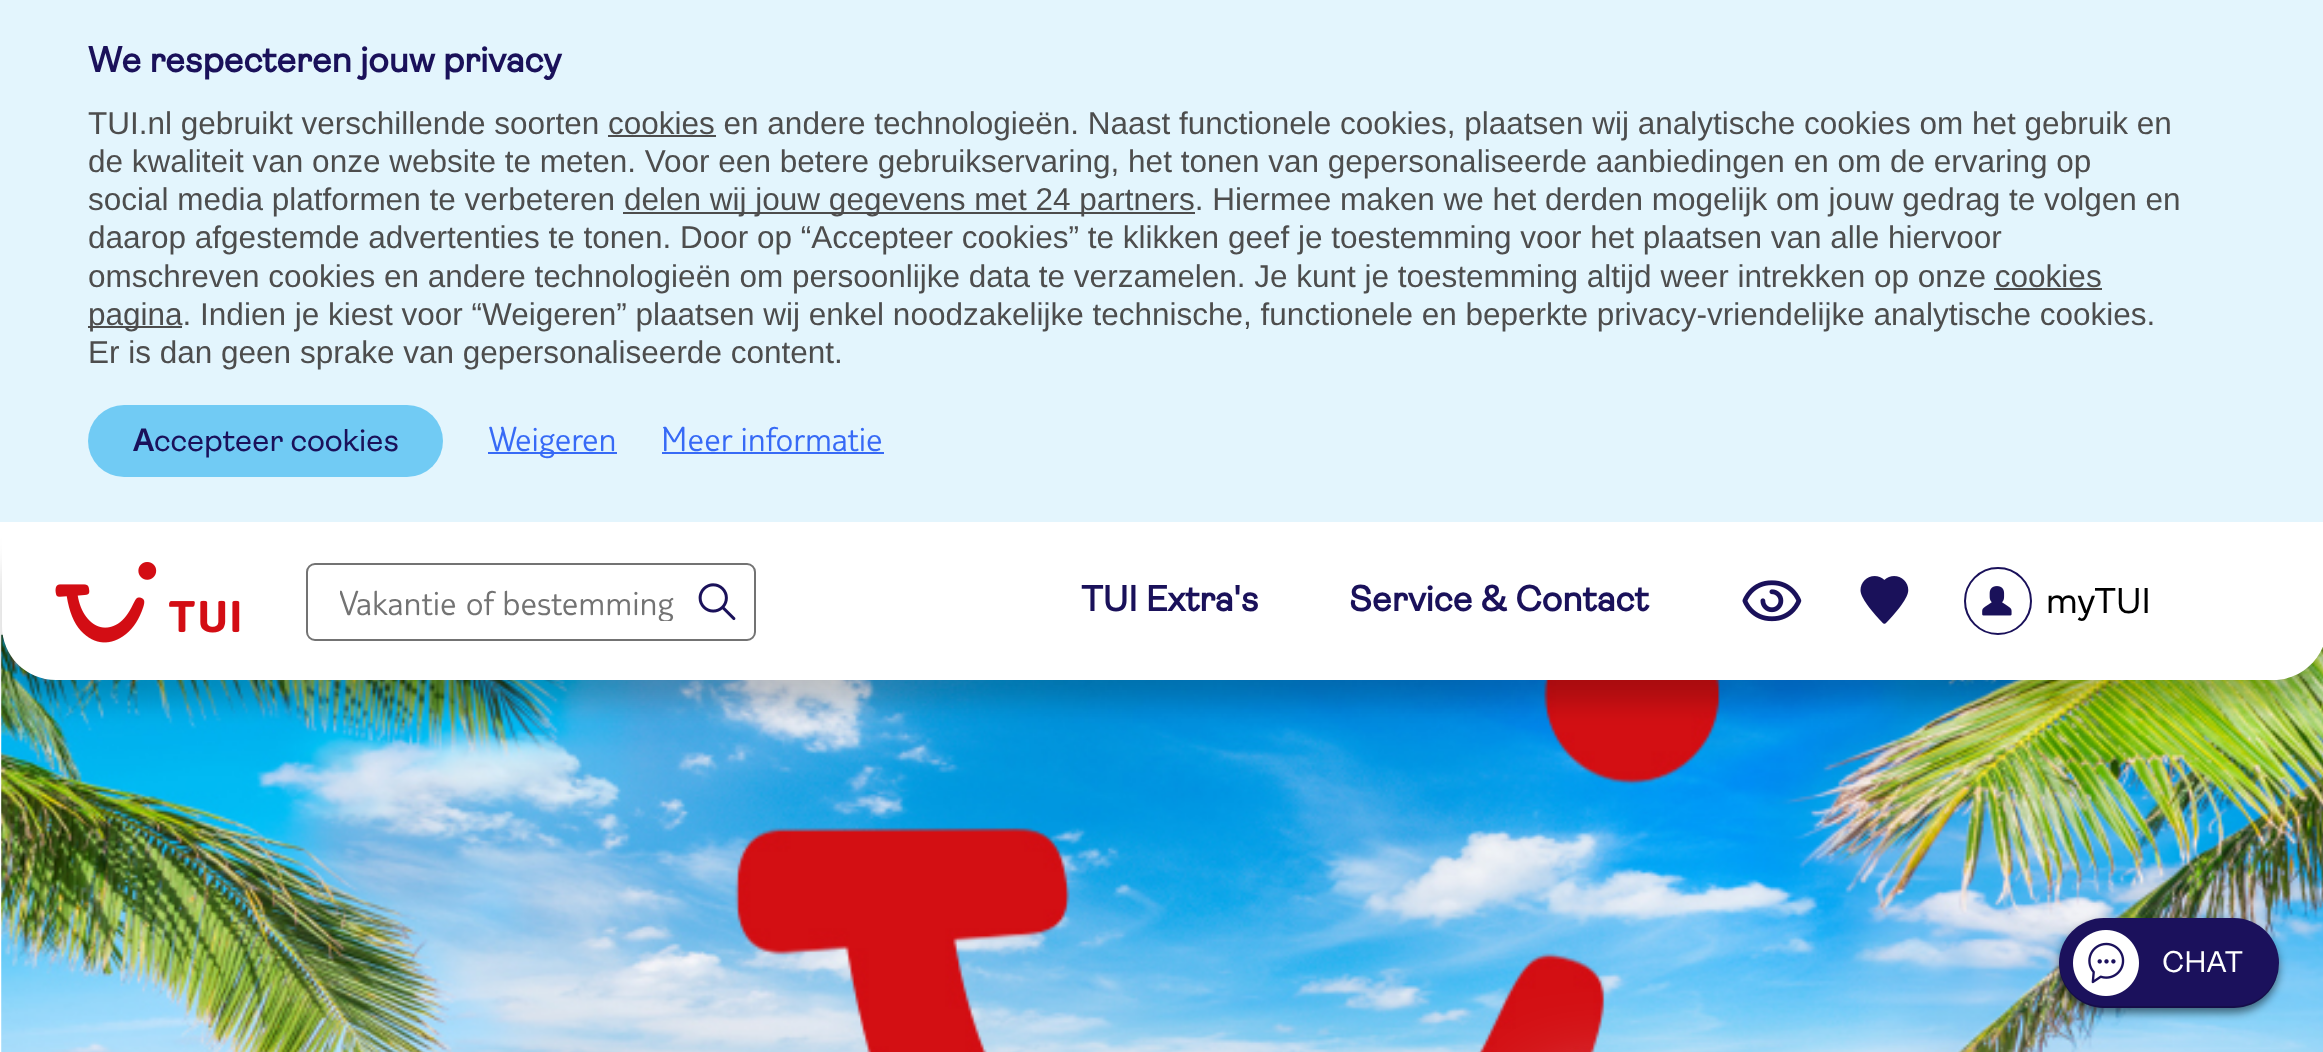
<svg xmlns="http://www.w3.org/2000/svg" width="2323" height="1052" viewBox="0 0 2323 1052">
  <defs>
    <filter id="blur1" x="-50%" y="-200%" width="200%" height="500%"><feGaussianBlur stdDeviation="13.5"/></filter>
    <clipPath id="clip1"><rect x="340" y="581" width="335" height="40"/></clipPath>
    <filter id="blur2" x="-50%" y="-200%" width="200%" height="500%"><feGaussianBlur stdDeviation="45"/></filter>
    <filter id="blur3" x="-50%" y="-200%" width="200%" height="500%"><feGaussianBlur stdDeviation="4.5"/></filter>
  </defs>
  <rect width="100%" height="100%" fill="#ffffff"/>
  <image x="1" y="634" width="2322" height="418" href="img6.png"/>
  <rect x="2" y="545" width="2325" height="157" rx="54" fill="#000000" fill-opacity="0.2" filter="url(#blur1)"/>
  <rect x="0" y="0" width="2323" height="522" fill="#e3f5fd"/>
  <text x="88" y="72" font-family="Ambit" font-size="36" font-weight="bold" fill="#1a115a">We respecteren jouw privacy</text>
  <text x="88" y="134" font-family="Liberation Sans" font-size="31.5" fill="#4d4d4d">TUI.nl gebruikt verschillende soorten cookies en andere technologieën. Naast functionele cookies, plaatsen wij analytische cookies om het gebruik en</text>
  <rect x="608" y="135" width="108" height="2" fill="#4d4d4d"/>
  <text x="88" y="172" font-family="Liberation Sans" font-size="31.5" fill="#4d4d4d">de kwaliteit van onze website te meten. Voor een betere gebruikservaring, het tonen van gepersonaliseerde aanbiedingen en om de ervaring op</text>
  <text x="88" y="210" font-family="Liberation Sans" font-size="31.5" fill="#4d4d4d">social media platformen te verbeteren</text>
  <rect x="623" y="212" width="572" height="2" fill="#4d4d4d"/>
  <text x="624" y="210" font-family="Liberation Sans" font-size="31.5" fill="#4d4d4d">delen wij jouw gegevens met 24 partners. Hiermee maken we het derden mogelijk om jouw gedrag te volgen en</text>
  <text x="88" y="248" font-family="Liberation Sans" font-size="31.5" fill="#4d4d4d">daarop afgestemde advertenties te tonen. Door op “Accepteer cookies” te klikken geef je toestemming voor het plaatsen van alle hiervoor</text>
  <text x="88" y="287" font-family="Liberation Sans" font-size="31.5" fill="#4d4d4d">omschreven cookies en andere technologieën om persoonlijke data te verzamelen. Je kunt je toestemming altijd weer intrekken op onze cookies</text>
  <rect x="88" y="326" width="94" height="2" fill="#4d4d4d"/>
  <text x="88" y="325" font-family="Liberation Sans" font-size="31.5" fill="#4d4d4d">pagina. Indien je kiest voor “Weigeren” plaatsen wij enkel noodzakelijke technische, functionele en beperkte privacy-vriendelijke analytische cookies.</text>
  <rect x="1994" y="288" width="108" height="2" fill="#4d4d4d"/>
  <text x="88" y="363" font-family="Liberation Sans" font-size="31.5" fill="#4d4d4d">Er is dan geen sprake van gepersonaliseerde content.</text>
  <rect x="88" y="405" width="355" height="72" rx="36" fill="#71cbf4"/>
  <text x="133" y="451" font-family="Noto Sans" font-size="31.5" font-weight="600" fill="#1a115a">A</text>
  <text x="154" y="451" font-family="Ambit" font-size="31.5" fill="#1a115a">ccepteer cookies</text>
  <rect x="488" y="452" width="129" height="2" fill="#376af6"/>
  <text x="489" y="451" font-family="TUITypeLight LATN" font-size="36" font-weight="300" fill="#376af6">Weigeren</text>
  <text x="661" y="451" font-family="TUITypeLight LATN" font-size="36" font-weight="300" fill="#376af6">Meer informatie</text>
  <rect x="662" y="452" width="222" height="2" fill="#376af6"/>
  <path d="M2 522H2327V626C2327 656 2303 680 2273 680H56C26 680 2 656 2 626Z" fill="#ffffff"/>
  <image x="55" y="562" width="185" height="81" href="img1.png"/>
  <rect x="307" y="564" width="448" height="76" rx="8" fill="none" stroke="#737373" stroke-width="2"/>
  <g clip-path="url(#clip1)">
    <text x="339" y="615" font-family="TUITypeLight LATN" font-size="36" font-weight="300" fill="#737373">Vakantie of bestemming</text>
  </g>
  <image x="698" y="583" width="38" height="38" href="img2.png"/>
  <text x="1081" y="611" font-family="Ambit" font-size="36" font-weight="bold" fill="#1a115a">TUI Extra's</text>
  <text x="1349" y="611" font-family="Ambit" font-size="36" font-weight="bold" fill="#1a115a">Service &amp; Contact</text>
  <image x="1742" y="580" width="60" height="42" href="img3.png"/>
  <image x="1860" y="576" width="49" height="48" href="img4.png"/>
  <circle cx="1998" cy="601" r="33" fill="none" stroke="#1a115a" stroke-width="2"/>
  <image x="1982" y="586" width="30" height="30" href="img5.png"/>
  <text x="2046" y="613" font-family="Ambit" font-size="36" fill="#000000">myTUI</text>
  <rect x="1539" y="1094" width="752" height="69" fill="#ffffff" fill-opacity="0.5" filter="url(#blur2)"/>
  <rect x="2059" y="923" width="220" height="90" rx="45" fill="#000000" fill-opacity="0.5" filter="url(#blur3)"/>
  <rect x="2059" y="918" width="220" height="90" rx="45" fill="#1b115c"/>
  <path d="M2059 962V963C2059 988 2079 1008 2104 1008H2234C2259 1008 2279 988 2279 963V962C2278 987 2259 1006 2234 1006H2104C2079 1006 2060 987 2059 962Z" fill="#000000" fill-opacity="0.2"/>
  <image x="2073" y="930" width="66" height="66" href="img7.png"/>
  <text x="2162" y="972" font-family="Ambit" font-size="30" fill="#ffffff">CHAT</text>
</svg>
